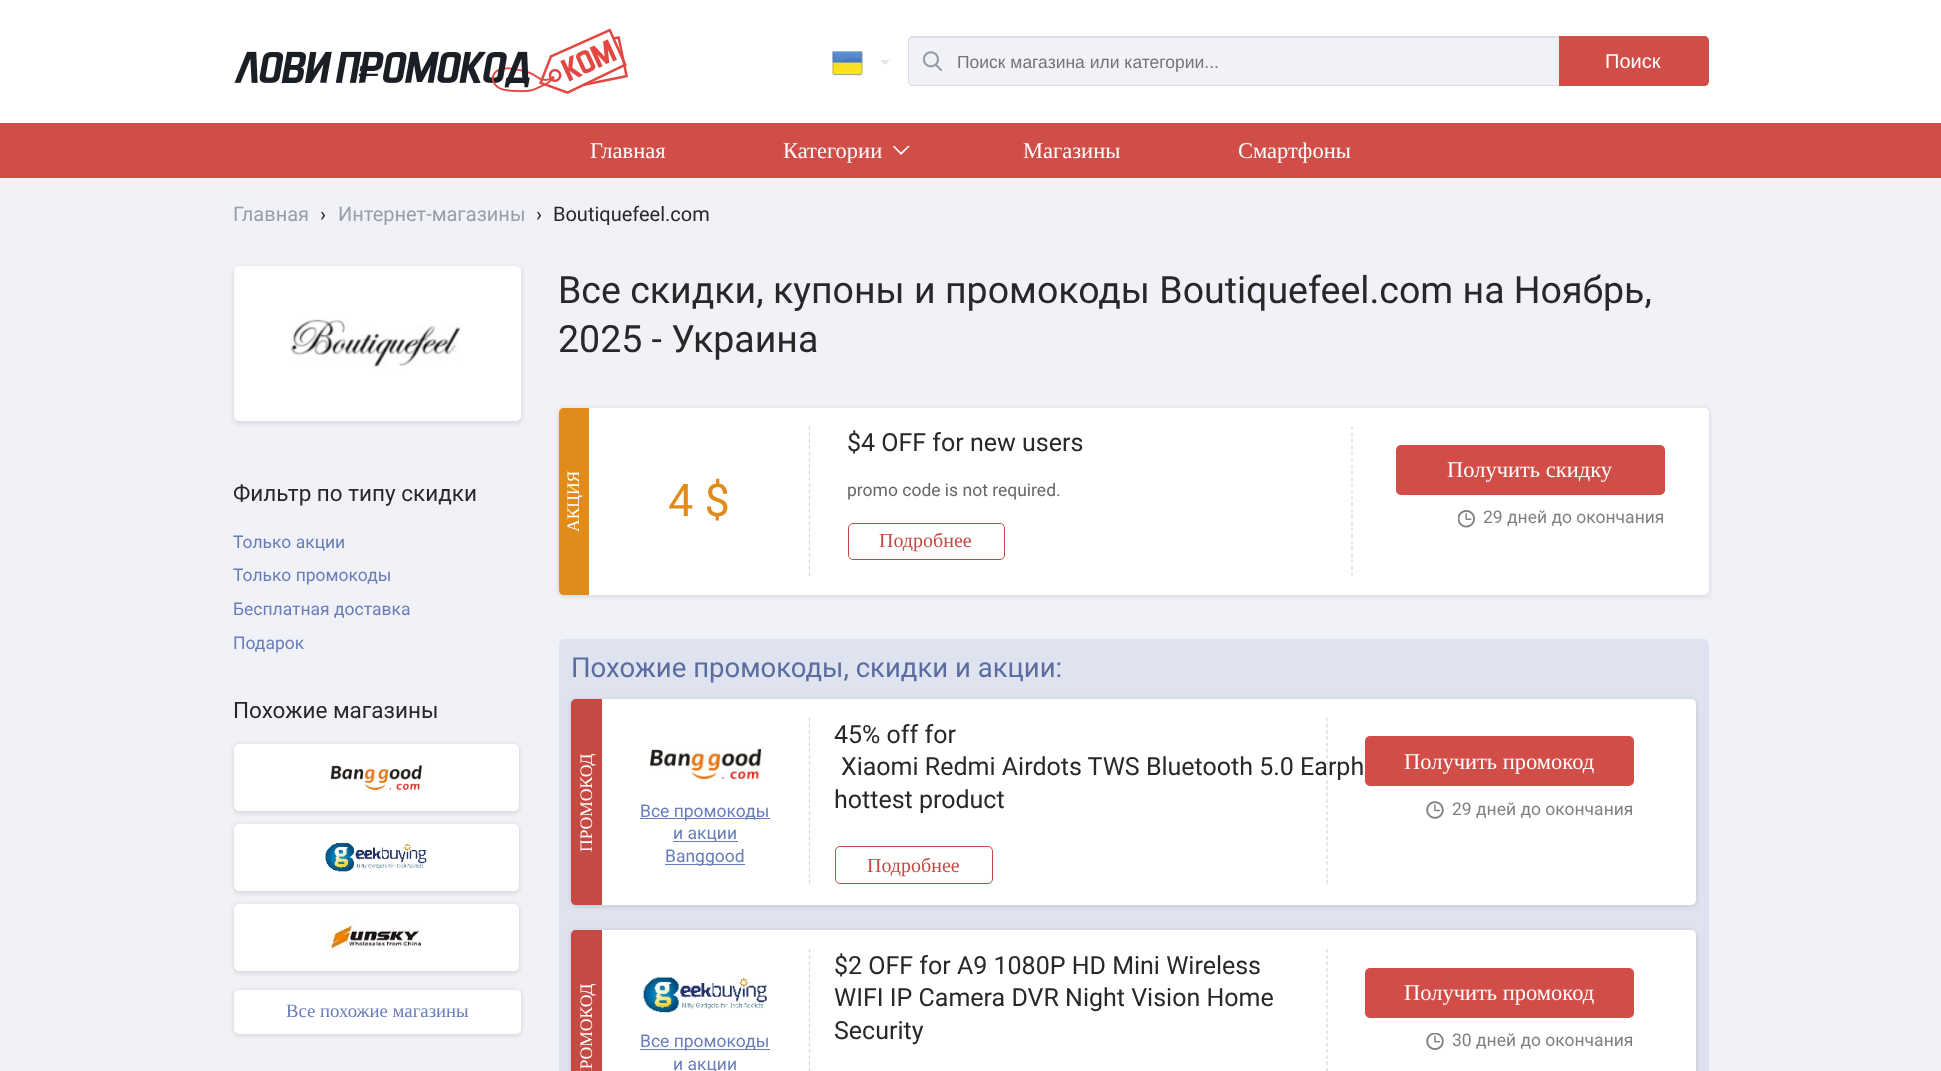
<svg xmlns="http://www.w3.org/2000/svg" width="1941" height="1071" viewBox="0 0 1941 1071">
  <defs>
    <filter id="blur1" x="-50%" y="-200%" width="200%" height="500%"><feGaussianBlur stdDeviation="2.5"/></filter>
  </defs>
  <rect width="100%" height="100%" fill="#f0f2f8"/>
  <rect x="0" y="0" width="1941" height="123" fill="#ffffff"/>
  <image x="234" y="28" width="394" height="66" href="img1.png"/>
  <image x="832" y="51" width="31" height="25" href="img2.png"/>
  <path d="M880 60H890L885 65Z" fill="#e6e6e6"/>
  <path d="M913 36H1559V86H913C910 86 908 84 908 81V41C908 38 910 36 913 36Z" fill="#f0f2f8"/>
  <path d="M912 36H1559V86H912C910 86 908 84 908 81V41C908 38 910 36 912 36ZM912 38H1559V85H912C910 85 909 83 909 81V41C909 39 910 38 912 38Z" fill="#dbdee7" fill-rule="evenodd"/>
  <image x="923" y="51" width="20" height="20" href="img3.png"/>
  <text x="957" y="68" font-family="Liberation Sans" font-size="17.5" fill="#757575">Поиск магазина или категории...</text>
  <path d="M1559 36H1704C1707 36 1709 38 1709 41V81C1709 84 1707 86 1704 86H1559Z" fill="#d14d48"/>
  <text x="1605" y="68" font-family="Liberation Sans" font-size="20" fill="#ffffff">Поиск</text>
  <rect x="0" y="123" width="1941" height="55" fill="#d14d48"/>
  <text x="590" y="158" font-family="Liberation Serif" font-size="22.5" fill="#ffffff">Главная</text>
  <text x="783" y="158" font-family="Liberation Serif" font-size="22.5" fill="#ffffff">Категории</text>
  <path d="M892.5 146H910L901 155Z" fill="#ffffff"/>
  <path d="M892.5 144H910L901 152.5Z" fill="#d14d48"/>
  <text x="1023" y="158" font-family="Liberation Serif" font-size="22.5" fill="#ffffff">Магазины</text>
  <text x="1238" y="158" font-family="Liberation Serif" font-size="22.5" fill="#ffffff">Смартфоны</text>
  <text x="233" y="221" font-family="Roboto" font-size="20" fill="#9b9ea6">Главная</text>
  <text x="320" y="221" font-family="Roboto" font-size="20" fill="#282828">›</text>
  <text x="338" y="221" font-family="Roboto" font-size="20" fill="#9b9ea6">Интернет-магазины</text>
  <text x="536" y="221" font-family="Roboto" font-size="20" fill="#282828">›</text>
  <text x="553" y="221" font-family="Roboto" font-size="20" fill="#282828">Boutiquefeel.com</text>
  <rect x="234" y="268" width="287" height="155" rx="5" fill="#1f1f22" fill-opacity="0.15" filter="url(#blur1)"/>
  <rect x="234" y="266" width="287" height="155" rx="5" fill="#ffffff"/>
  <image x="289" y="319" width="172" height="51" href="img4.png"/>
  <text x="558" y="303" font-family="Roboto" font-size="37.5" fill="#282828">Все скидки, купоны и промокоды Boutiquefeel.com на Ноябрь,</text>
  <text x="558" y="352" font-family="Roboto" font-size="37.5" fill="#282828">2025 - Украина</text>
  <text x="233" y="501" font-family="Roboto" font-size="22.5" fill="#282828">Фильтр по типу скидки</text>
  <text x="233" y="548" font-family="Roboto" font-size="17.5" fill="#687db9">Только акции</text>
  <text x="233" y="581" font-family="Roboto" font-size="17.5" fill="#687db9">Только промокоды</text>
  <text x="233" y="615" font-family="Roboto" font-size="17.5" fill="#687db9">Бесплатная доставка</text>
  <text x="233" y="649" font-family="Roboto" font-size="17.5" fill="#687db9">Подарок</text>
  <text x="233" y="718" font-family="Roboto" font-size="22.5" fill="#282828">Похожие магазины</text>
  <rect x="234" y="745" width="285" height="68" rx="5" fill="#1f1f22" fill-opacity="0.15" filter="url(#blur1)"/>
  <rect x="234.5" y="744.5" width="284" height="66" rx="4.5" fill="#ffffff" stroke="#ffffff"/>
  <image x="330" y="764" width="95" height="27" href="img5.png"/>
  <rect x="234" y="825" width="285" height="68" rx="5" fill="#1f1f22" fill-opacity="0.15" filter="url(#blur1)"/>
  <rect x="234.5" y="824.5" width="284" height="66" rx="4.5" fill="#ffffff" stroke="#ffffff"/>
  <image x="325" y="842" width="102" height="31" href="img6.png"/>
  <rect x="234" y="905" width="285" height="68" rx="5" fill="#1f1f22" fill-opacity="0.15" filter="url(#blur1)"/>
  <rect x="234.5" y="904.5" width="284" height="66" rx="4.5" fill="#ffffff" stroke="#ffffff"/>
  <image x="322" y="915" width="100" height="38" href="img7.png"/>
  <rect x="234" y="991" width="287" height="44" rx="5" fill="#1f1f22" fill-opacity="0.15" filter="url(#blur1)"/>
  <rect x="234" y="990" width="287" height="44" rx="5" fill="#ffffff"/>
  <text x="286" y="1017" font-family="Liberation Serif" font-size="18.75" fill="#687db9">Все похожие магазины</text>
  <rect x="559" y="409" width="1150" height="187" rx="5" fill="#1f1f22" fill-opacity="0.15" filter="url(#blur1)"/>
  <rect x="559" y="408" width="1150" height="187" rx="5" fill="#ffffff"/>
  <path d="M564 408H589V595H564C561 595 559 593 559 590V413C559 410 561 408 564 408Z" fill="#e18b1a"/>
  <text x="579" y="532" transform="rotate(-90 579 532)" font-family="Liberation Serif" font-size="17.5" fill="#ffffff">АКЦИЯ</text>
  <text x="668" y="516" font-family="Roboto" font-size="45" fill="#e18b1a">4 $</text>
  <path d="M1352 426V576" fill="none" stroke="#d7d7d7" stroke-width="1.2" stroke-dasharray="3.75 2.61"/>
  <path d="M809.5 426V576" fill="none" stroke="#d7d7d7" stroke-width="1.2" stroke-dasharray="3.75 2.61"/>
  <text x="847" y="451" font-family="Roboto" font-size="25" fill="#282828">$4 OFF for new users</text>
  <text x="847" y="496" font-family="Roboto" font-size="17.5" fill="#65676b">promo code is not required.</text>
  <rect x="848.5" y="523.5" width="156" height="36" rx="4.5" fill="none" stroke="#c54943"/>
  <text x="879" y="547" font-family="Liberation Serif" font-size="20" fill="#c54943">Подробнее</text>
  <rect x="1396" y="445" width="269" height="50" rx="5" fill="#d14d48"/>
  <text x="1447" y="477" font-family="Liberation Serif" font-size="22.5" fill="#ffffff">Получить скидку</text>
  <image x="1458" y="510" width="17" height="18" href="img8.png"/>
  <text x="1483" y="523" font-family="Roboto" font-size="17.5" fill="#808080">29 дней до окончания</text>
  <rect x="559" y="639" width="1150" height="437" rx="5" fill="#dfe3ef"/>
  <text x="571" y="677" font-family="Roboto" font-size="27.5" fill="#5b6da0">Похожие промокоды, скидки и акции:</text>
  <rect x="571" y="700" width="1125" height="206" rx="5" fill="#1f1f22" fill-opacity="0.15" filter="url(#blur1)"/>
  <rect x="571" y="699" width="1125" height="206" rx="5" fill="#ffffff"/>
  <path d="M576 699H602V905H576C573 905 571 903 571 900V704C571 701 573 699 576 699Z" fill="#c64a44"/>
  <text x="592" y="852" transform="rotate(-90 592 852)" font-family="Liberation Serif" font-size="17.5" fill="#ffffff">ПРОМОКОД</text>
  <image x="649" y="747" width="116" height="33" href="img9.png"/>
  <rect x="640" y="818" width="130" height="1" fill="#687db9"/>
  <text x="640" y="817" font-family="Roboto" font-size="17.5" fill="#687db9">Все промокоды</text>
  <rect x="673" y="841" width="65" height="1" fill="#687db9"/>
  <text x="673" y="839" font-family="Roboto" font-size="17.5" fill="#687db9">и акции</text>
  <rect x="665" y="864" width="80" height="1" fill="#687db9"/>
  <text x="665" y="862" font-family="Roboto" font-size="17.5" fill="#687db9">Banggood</text>
  <path d="M1327 717.5V884" fill="none" stroke="#d7d7d7" stroke-width="1.2" stroke-dasharray="3.75 2.5"/>
  <path d="M809.5 717.5V884" fill="none" stroke="#d7d7d7" stroke-width="1.2" stroke-dasharray="3.75 2.5"/>
  <text x="834" y="743" font-family="Roboto" font-size="25" fill="#282828">45% off for</text>
  <text x="841" y="775" font-family="Roboto" font-size="25" fill="#282828">Xiaomi Redmi Airdots TWS Bluetooth 5.0 Earph</text>
  <text x="834" y="808" font-family="Roboto" font-size="25" fill="#282828">hottest product</text>
  <rect x="835.5" y="846.5" width="157" height="37" rx="4.5" fill="none" stroke="#c54943"/>
  <text x="867" y="872" font-family="Liberation Serif" font-size="20" fill="#c54943">Подробнее</text>
  <rect x="1365" y="736" width="269" height="50" rx="5" fill="#d14d48"/>
  <text x="1404" y="769" font-family="Liberation Serif" font-size="22.5" fill="#ffffff">Получить промокод</text>
  <image x="1426" y="801" width="18" height="18" href="img10.png"/>
  <text x="1452" y="815" font-family="Roboto" font-size="17.5" fill="#808080">29 дней до окончания</text>
  <rect x="571" y="931" width="1125" height="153" rx="5" fill="#1f1f22" fill-opacity="0.15" filter="url(#blur1)"/>
  <rect x="571" y="930" width="1125" height="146" rx="5" fill="#ffffff"/>
  <path d="M576 930H602V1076H576C573 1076 571 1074 571 1071V935C571 932 573 930 576 930Z" fill="#c64a44"/>
  <text x="592" y="1082" transform="rotate(-90 592 1082)" font-family="Liberation Serif" font-size="17.5" fill="#ffffff">ПРОМОКОД</text>
  <image x="643" y="976" width="124" height="38" href="img11.png"/>
  <rect x="640" y="1049" width="130" height="1" fill="#687db9"/>
  <text x="640" y="1047" font-family="Roboto" font-size="17.5" fill="#687db9">Все промокоды</text>
  <text x="673" y="1070" font-family="Roboto" font-size="17.5" fill="#687db9">и акции</text>
  <path d="M1327 949V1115" fill="none" stroke="#d7d7d7" stroke-width="1.2" stroke-dasharray="3.75 2.5"/>
  <path d="M809.5 949V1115" fill="none" stroke="#d7d7d7" stroke-width="1.2" stroke-dasharray="3.75 2.5"/>
  <text x="834" y="974" font-family="Roboto" font-size="25" fill="#282828">$2 OFF for A9 1080P HD Mini Wireless</text>
  <text x="834" y="1006" font-family="Roboto" font-size="25" fill="#282828">WIFI IP Camera DVR Night Vision Home</text>
  <text x="834" y="1039" font-family="Roboto" font-size="25" fill="#282828">Security</text>
  <rect x="1365" y="968" width="269" height="50" rx="5" fill="#d14d48"/>
  <text x="1404" y="1000" font-family="Liberation Serif" font-size="22.5" fill="#ffffff">Получить промокод</text>
  <image x="1426" y="1033" width="18" height="17" href="img12.png"/>
  <text x="1452" y="1046" font-family="Roboto" font-size="17.5" fill="#808080">30 дней до окончания</text>
</svg>
